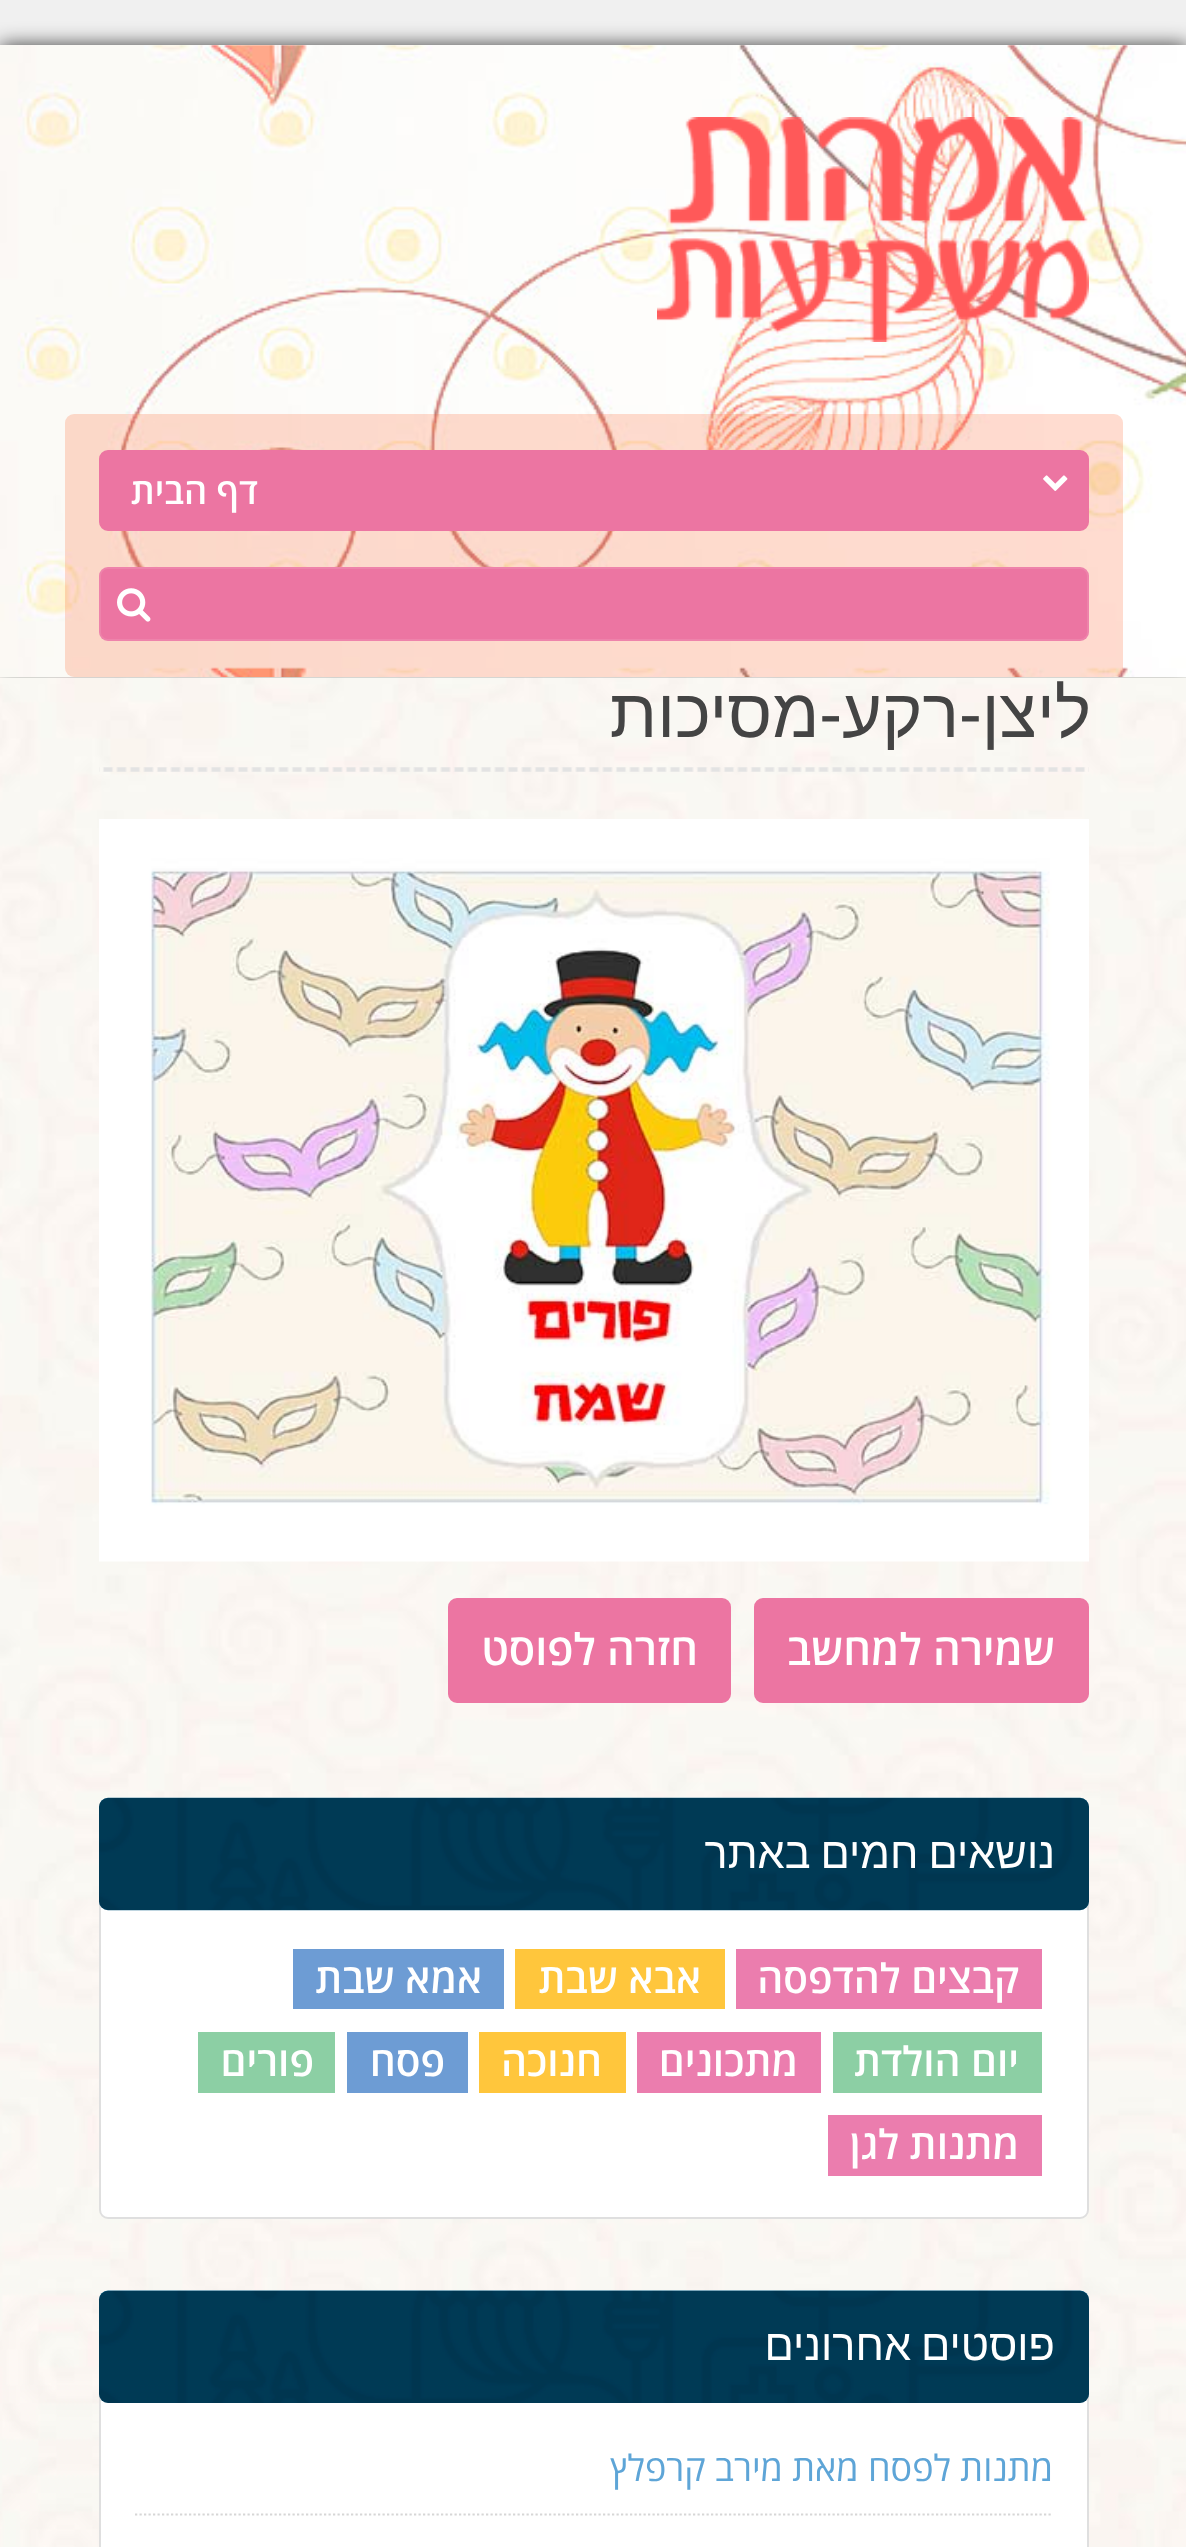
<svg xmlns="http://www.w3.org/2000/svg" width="1186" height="2547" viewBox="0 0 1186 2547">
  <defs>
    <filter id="blur1" x="-50%" y="-200%" width="200%" height="500%"><feGaussianBlur stdDeviation="10"/></filter>
  </defs>
  <rect width="100%" height="100%" fill="#f0f0f0"/>
  <rect x="0" y="45" width="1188" height="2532" fill="#000000" fill-opacity="0.74" filter="url(#blur1)"/>
  <image x="0" y="45" width="1186" height="633" href="img1.png"/>
  <image x="657" y="117" width="432" height="225" href="img2.png"/>
  <rect x="65" y="414" width="1058" height="263" rx="9" fill="#ff5215" fill-opacity="0.2"/>
  <rect x="100" y="451" width="988" height="79" rx="8" fill="#ec75a2" stroke="#ec75a2" stroke-width="2"/>
  <image x="1043" y="475" width="25" height="16" href="img3.png"/>
  <text x="258" y="504" font-family="Open Sans" font-size="36" font-weight="600" direction="rtl" fill="#ffffff">דף הבית</text>
  <rect x="99" y="567" width="990" height="74" rx="9" fill="#ec75a2"/>
  <rect x="100" y="568" width="988" height="72" rx="8" fill="none" stroke="#ffffff" stroke-opacity="0.1" stroke-width="2"/>
  <image x="117" y="588" width="34" height="34" href="img4.png"/>
  <image x="0" y="677" width="1186" height="1870" href="img5.png"/>
  <image x="99" y="767" width="990" height="5" href="img6.png"/>
  <text x="1091" y="737" font-family="Liberation Sans" font-size="68.5" direction="rtl" fill="#444444">ליצן-רקע-מסיכות</text>
  <image x="99" y="819" width="990" height="743" href="img7.png"/>
  <rect x="756.5" y="1600.5" width="330" height="100" rx="6.5" fill="#ec75a2" stroke="#ec75a2" stroke-width="5"/>
  <text x="1055" y="1665" font-family="Open Sans" font-size="43.25" font-weight="600" direction="rtl" fill="#ffffff">שמירה למחשב</text>
  <rect x="450.5" y="1600.5" width="278" height="100" rx="6.5" fill="#ec75a2" stroke="#ec75a2" stroke-width="5"/>
  <text x="698" y="1665" font-family="Open Sans" font-size="43.25" font-weight="600" direction="rtl" fill="#ffffff">חזרה לפוסט</text>
  <rect x="100" y="1799" width="988" height="419" rx="8" fill="#ffffff" stroke="#dfdfdf" stroke-width="2"/>
  <image x="99" y="1797" width="990" height="114" href="img8.png"/>
  <rect x="99" y="1798" width="990" height="112" rx="9" fill="#000000" fill-opacity="0.35"/>
  <text x="1055" y="1868" word-spacing="-2" font-family="Liberation Sans" font-size="43.25" direction="rtl" fill="#ffffff">נושאים חמים באתר</text>
  <rect x="736" y="1949" width="306" height="60" fill="#eb7dae"/>
  <text x="1019" y="1993" font-family="Open Sans" font-size="40.5" font-weight="600" direction="rtl" fill="#ffffff">קבצים להדפסה</text>
  <rect x="515" y="1949" width="210" height="60" fill="#ffc63c"/>
  <text x="701" y="1993" font-family="Open Sans" font-size="40.5" font-weight="600" direction="rtl" fill="#ffffff">אבא שבת</text>
  <rect x="293" y="1949" width="211" height="60" fill="#6d9cd4"/>
  <text x="482" y="1993" font-family="Open Sans" font-size="40.5" font-weight="600" direction="rtl" fill="#ffffff">אמא שבת</text>
  <rect x="833" y="2032" width="209" height="61" fill="#8ccfa4"/>
  <text x="1019" y="2076" font-family="Open Sans" font-size="40.5" font-weight="600" direction="rtl" fill="#ffffff">יום הולדת</text>
  <rect x="637" y="2032" width="184" height="61" fill="#eb7dae"/>
  <text x="798" y="2076" font-family="Open Sans" font-size="40.5" font-weight="600" direction="rtl" fill="#ffffff">מתכונים</text>
  <rect x="479" y="2032" width="147" height="61" fill="#ffc63c"/>
  <text x="602" y="2076" font-family="Open Sans" font-size="40.5" font-weight="600" direction="rtl" fill="#ffffff">חנוכה</text>
  <rect x="347" y="2032" width="121" height="61" fill="#6d9cd4"/>
  <text x="445" y="2076" font-family="Open Sans" font-size="40.5" font-weight="600" direction="rtl" fill="#ffffff">פסח</text>
  <rect x="198" y="2032" width="137" height="61" fill="#8ccfa4"/>
  <text x="314" y="2076" font-family="Open Sans" font-size="40.5" font-weight="600" direction="rtl" fill="#ffffff">פורים</text>
  <rect x="828" y="2115" width="214" height="61" fill="#eb7dae"/>
  <text x="1019" y="2159" font-family="Open Sans" font-size="40.5" font-weight="600" direction="rtl" fill="#ffffff">מתנות לגן</text>
  <rect x="100" y="2292" width="988" height="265" rx="8" fill="#ffffff" stroke="#dfdfdf" stroke-width="2"/>
  <image x="98" y="2290" width="992" height="113" href="img9.png"/>
  <rect x="99" y="2291" width="990" height="112" rx="9" fill="#000000" fill-opacity="0.35"/>
  <text x="1055" y="2360" word-spacing="-2" font-family="Liberation Sans" font-size="43.25" direction="rtl" fill="#ffffff">פוסטים אחרונים</text>
  <path d="M135 2514.5H1053" fill="none" stroke="#d6d6d6" stroke-width="2.2" stroke-dasharray="2.25 2.25"/>
  <text x="1053" y="2481" font-family="Open Sans" font-size="36" direction="rtl" fill="#5ea5d7">מתנות לפסח מאת מירב קרפלץ</text>
</svg>
